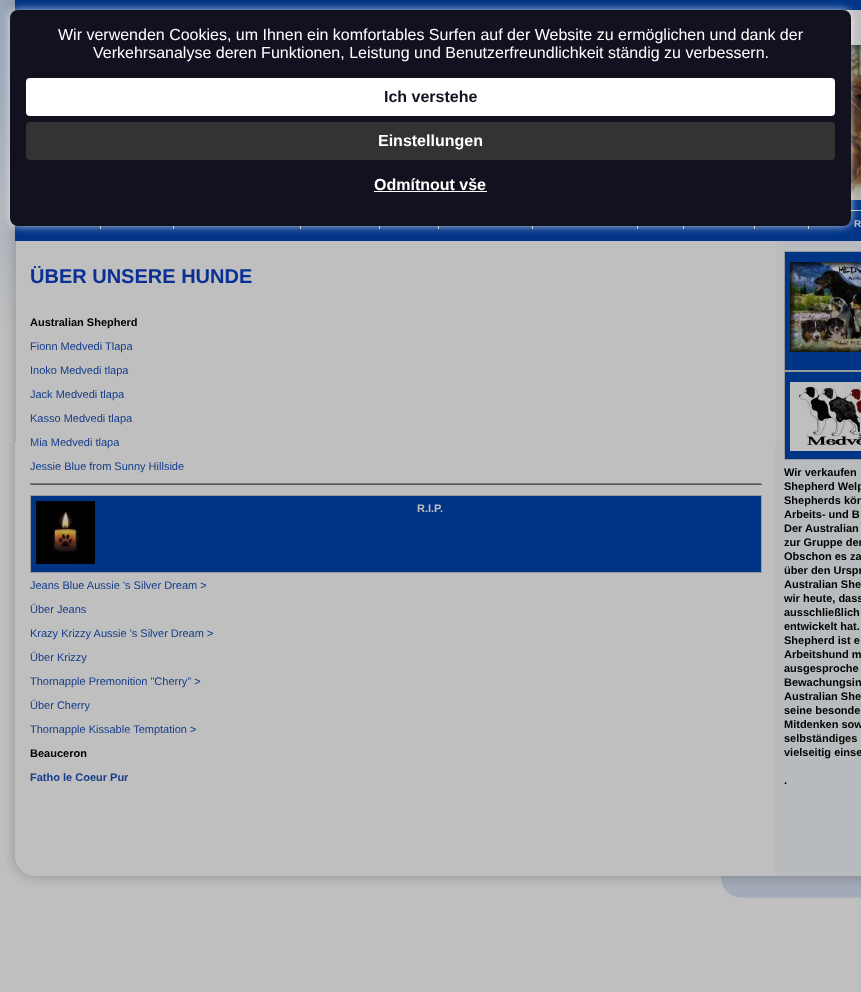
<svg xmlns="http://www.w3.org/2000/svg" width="861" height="992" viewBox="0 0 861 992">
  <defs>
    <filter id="blur1" x="-50%" y="-200%" width="200%" height="500%"><feGaussianBlur stdDeviation="4"/></filter>
  </defs>
  <rect width="100%" height="100%" fill="#bfbfbf"/>
  <image x="0" y="0" width="861" height="241" href="img1.png"/>
  <image x="15" y="10" width="846" height="190" href="img2.png"/>
  <rect x="100" y="218" width="1" height="11" fill="#bfbfbf"/>
  <rect x="173" y="218" width="1" height="11" fill="#bfbfbf"/>
  <rect x="300" y="218" width="1" height="11" fill="#bfbfbf"/>
  <rect x="379" y="218" width="1" height="11" fill="#bfbfbf"/>
  <rect x="438" y="218" width="1" height="11" fill="#bfbfbf"/>
  <rect x="532" y="218" width="1" height="11" fill="#bfbfbf"/>
  <rect x="637" y="218" width="1" height="11" fill="#bfbfbf"/>
  <rect x="683" y="218" width="1" height="11" fill="#bfbfbf"/>
  <rect x="754" y="218" width="1" height="11" fill="#bfbfbf"/>
  <rect x="808" y="218" width="1" height="11" fill="#bfbfbf"/>
  <rect x="10" y="10" width="841" height="216" rx="8" fill="#ffffff" fill-opacity="0.75" filter="url(#blur1)"/>
  <rect x="10" y="10" width="841" height="216" rx="8" fill="#11111f"/>
  <text x="58" y="40" font-family="Liberation Sans" font-size="16" fill="#ffffff">Wir verwenden Cookies, um Ihnen ein komfortables Surfen auf der Website zu ermöglichen und dank der</text>
  <text x="93" y="58" font-family="Liberation Sans" font-size="16" fill="#ffffff">Verkehrsanalyse deren Funktionen, Leistung und Benutzerfreundlichkeit ständig zu verbessern.</text>
  <rect x="26" y="78" width="809" height="38" rx="4" fill="#ffffff"/>
  <text x="384" y="102" font-family="Liberation Sans" font-size="16" font-weight="bold" fill="#11111f">Ich verstehe</text>
  <rect x="26" y="122" width="809" height="38" rx="4" fill="#333333"/>
  <text x="378" y="146" font-family="Liberation Sans" font-size="16" font-weight="bold" fill="#ffffff">Einstellungen</text>
  <text x="374" y="190" font-family="Liberation Sans" font-size="16" font-weight="bold" fill="#ffffff">Odmítnout vše</text>
  <rect x="374" y="191" width="113" height="1" fill="#ffffff"/>
  <text x="854" y="227" font-family="Liberation Sans" font-size="10" font-weight="bold" fill="#bfbfbf">R</text>
  <image x="0" y="442" width="861" height="414" href="img3.png"/>
  <image x="0" y="241" width="777" height="201" href="img4.png"/>
  <text x="30" y="283" font-family="Liberation Sans" font-size="20" font-weight="bold" fill="#0a2f95">ÜBER UNSERE HUNDE</text>
  <text x="30" y="326" font-family="Liberation Sans" font-size="11" font-weight="bold" fill="#000000">Australian Shepherd</text>
  <text x="30" y="350" font-family="Liberation Sans" font-size="11" fill="#143c8a">Fionn Medvedi Tlapa</text>
  <text x="30" y="374" font-family="Liberation Sans" font-size="11" fill="#143c8a">Inoko Medvedi tlapa</text>
  <text x="30" y="398" font-family="Liberation Sans" font-size="11" fill="#143c8a">Jack Medvedi tlapa</text>
  <text x="30" y="422" font-family="Liberation Sans" font-size="11" fill="#143c8a">Kasso Medvedi tlapa</text>
  <text x="30" y="446" font-family="Liberation Sans" font-size="11" fill="#143c8a">Mia Medvedi tlapa</text>
  <text x="30" y="470" font-family="Liberation Sans" font-size="11" fill="#143c8a">Jessie Blue from Sunny Hillside</text>
  <rect x="30" y="483" width="732" height="1" fill="#777777"/>
  <rect x="761" y="483" width="1" height="2" fill="#b3b3b3"/>
  <rect x="30" y="484" width="732" height="1" fill="#595959"/>
  <rect x="30" y="483" width="1" height="2" fill="#777777"/>
  <rect x="31" y="496" width="730" height="76" fill="#003586"/>
  <rect x="30" y="495" width="732" height="1" fill="#999999"/>
  <rect x="761" y="495" width="1" height="78" fill="#999999"/>
  <rect x="30" y="572" width="732" height="1" fill="#999999"/>
  <rect x="30" y="495" width="1" height="78" fill="#999999"/>
  <image x="36" y="501" width="59" height="63" href="img5.png"/>
  <text x="417" y="512" font-family="Liberation Sans" font-size="11" font-weight="bold" fill="#bfbfbf">R.I.P.</text>
  <text x="30" y="589" font-family="Liberation Sans" font-size="11" fill="#143c8a">Jeans Blue Aussie 's Silver Dream &gt;</text>
  <text x="30" y="613" font-family="Liberation Sans" font-size="11" fill="#143c8a">Über Jeans</text>
  <text x="30" y="637" font-family="Liberation Sans" font-size="11" fill="#143c8a">Krazy Krizzy Aussie 's Silver Dream &gt;</text>
  <text x="30" y="661" font-family="Liberation Sans" font-size="11" fill="#143c8a">Über Krizzy</text>
  <text x="30" y="685" font-family="Liberation Sans" font-size="11" fill="#143c8a">Thornapple Premonition "Cherry" &gt;</text>
  <text x="30" y="709" font-family="Liberation Sans" font-size="11" fill="#143c8a">Über Cherry</text>
  <text x="30" y="733" font-family="Liberation Sans" font-size="11" fill="#143c8a">Thornapple Kissable Temptation &gt;</text>
  <text x="30" y="757" font-family="Liberation Sans" font-size="11" font-weight="bold" fill="#000000">Beauceron</text>
  <text x="30" y="781" font-family="Liberation Sans" font-size="11" font-weight="bold" fill="#143c8a">Fatho le Coeur Pur</text>
  <rect x="777" y="241" width="84" height="201" fill="#b9bbbf"/>
  <rect x="785" y="252" width="76" height="118" fill="#003586"/>
  <rect x="784" y="251" width="77" height="1" fill="#999999"/>
  <rect x="784" y="370" width="77" height="2" fill="#999999"/>
  <rect x="784" y="251" width="1" height="120" fill="#999999"/>
  <image x="790" y="262" width="71" height="90" href="img6.png"/>
  <rect x="785" y="372" width="76" height="87" fill="#003586"/>
  <rect x="784" y="459" width="77" height="1" fill="#999999"/>
  <rect x="784" y="371" width="1" height="89" fill="#999999"/>
  <image x="790" y="382" width="71" height="69" href="img7.png"/>
  <text x="784" y="476" font-family="Liberation Sans" font-size="11" font-weight="bold" fill="#000000">Wir verkaufen</text>
  <text x="784" y="490" font-family="Liberation Sans" font-size="11" font-weight="bold" fill="#000000">Shepherd Welp</text>
  <text x="784" y="504" font-family="Liberation Sans" font-size="11" font-weight="bold" fill="#000000">Shepherds kön</text>
  <text x="784" y="518" font-family="Liberation Sans" font-size="11" font-weight="bold" fill="#000000">Arbeits- und B</text>
  <text x="784" y="532" font-family="Liberation Sans" font-size="11" font-weight="bold" fill="#000000">Der Australian</text>
  <text x="784" y="546" font-family="Liberation Sans" font-size="11" font-weight="bold" fill="#000000">zur Gruppe der</text>
  <text x="784" y="560" font-family="Liberation Sans" font-size="11" font-weight="bold" fill="#000000">Obschon es za</text>
  <text x="784" y="574" font-family="Liberation Sans" font-size="11" font-weight="bold" fill="#000000">über den Urspr</text>
  <text x="784" y="588" font-family="Liberation Sans" font-size="11" font-weight="bold" fill="#000000">Australian She</text>
  <text x="784" y="602" font-family="Liberation Sans" font-size="11" font-weight="bold" fill="#000000">wir heute, dass</text>
  <text x="784" y="616" font-family="Liberation Sans" font-size="11" font-weight="bold" fill="#000000">ausschließlich</text>
  <text x="784" y="630" font-family="Liberation Sans" font-size="11" font-weight="bold" fill="#000000">entwickelt hat.</text>
  <text x="784" y="644" font-family="Liberation Sans" font-size="11" font-weight="bold" fill="#000000">Shepherd ist e</text>
  <text x="784" y="658" font-family="Liberation Sans" font-size="11" font-weight="bold" fill="#000000">Arbeitshund m</text>
  <text x="784" y="672" font-family="Liberation Sans" font-size="11" font-weight="bold" fill="#000000">ausgesproche</text>
  <text x="784" y="686" font-family="Liberation Sans" font-size="11" font-weight="bold" fill="#000000">Bewachungsin</text>
  <text x="784" y="700" font-family="Liberation Sans" font-size="11" font-weight="bold" fill="#000000">Australian She</text>
  <text x="784" y="714" font-family="Liberation Sans" font-size="11" font-weight="bold" fill="#000000">seine besonde</text>
  <text x="784" y="728" font-family="Liberation Sans" font-size="11" font-weight="bold" fill="#000000">Mitdenken sow</text>
  <text x="784" y="742" font-family="Liberation Sans" font-size="11" font-weight="bold" fill="#000000">selbständiges</text>
  <text x="784" y="756" font-family="Liberation Sans" font-size="11" font-weight="bold" fill="#000000">vielseitig einse</text>
  <text x="784" y="784" font-family="Liberation Sans" font-size="11" font-weight="bold" fill="#000000">.</text>
  <image x="6" y="856" width="855" height="42" href="img8.png"/>
</svg>
